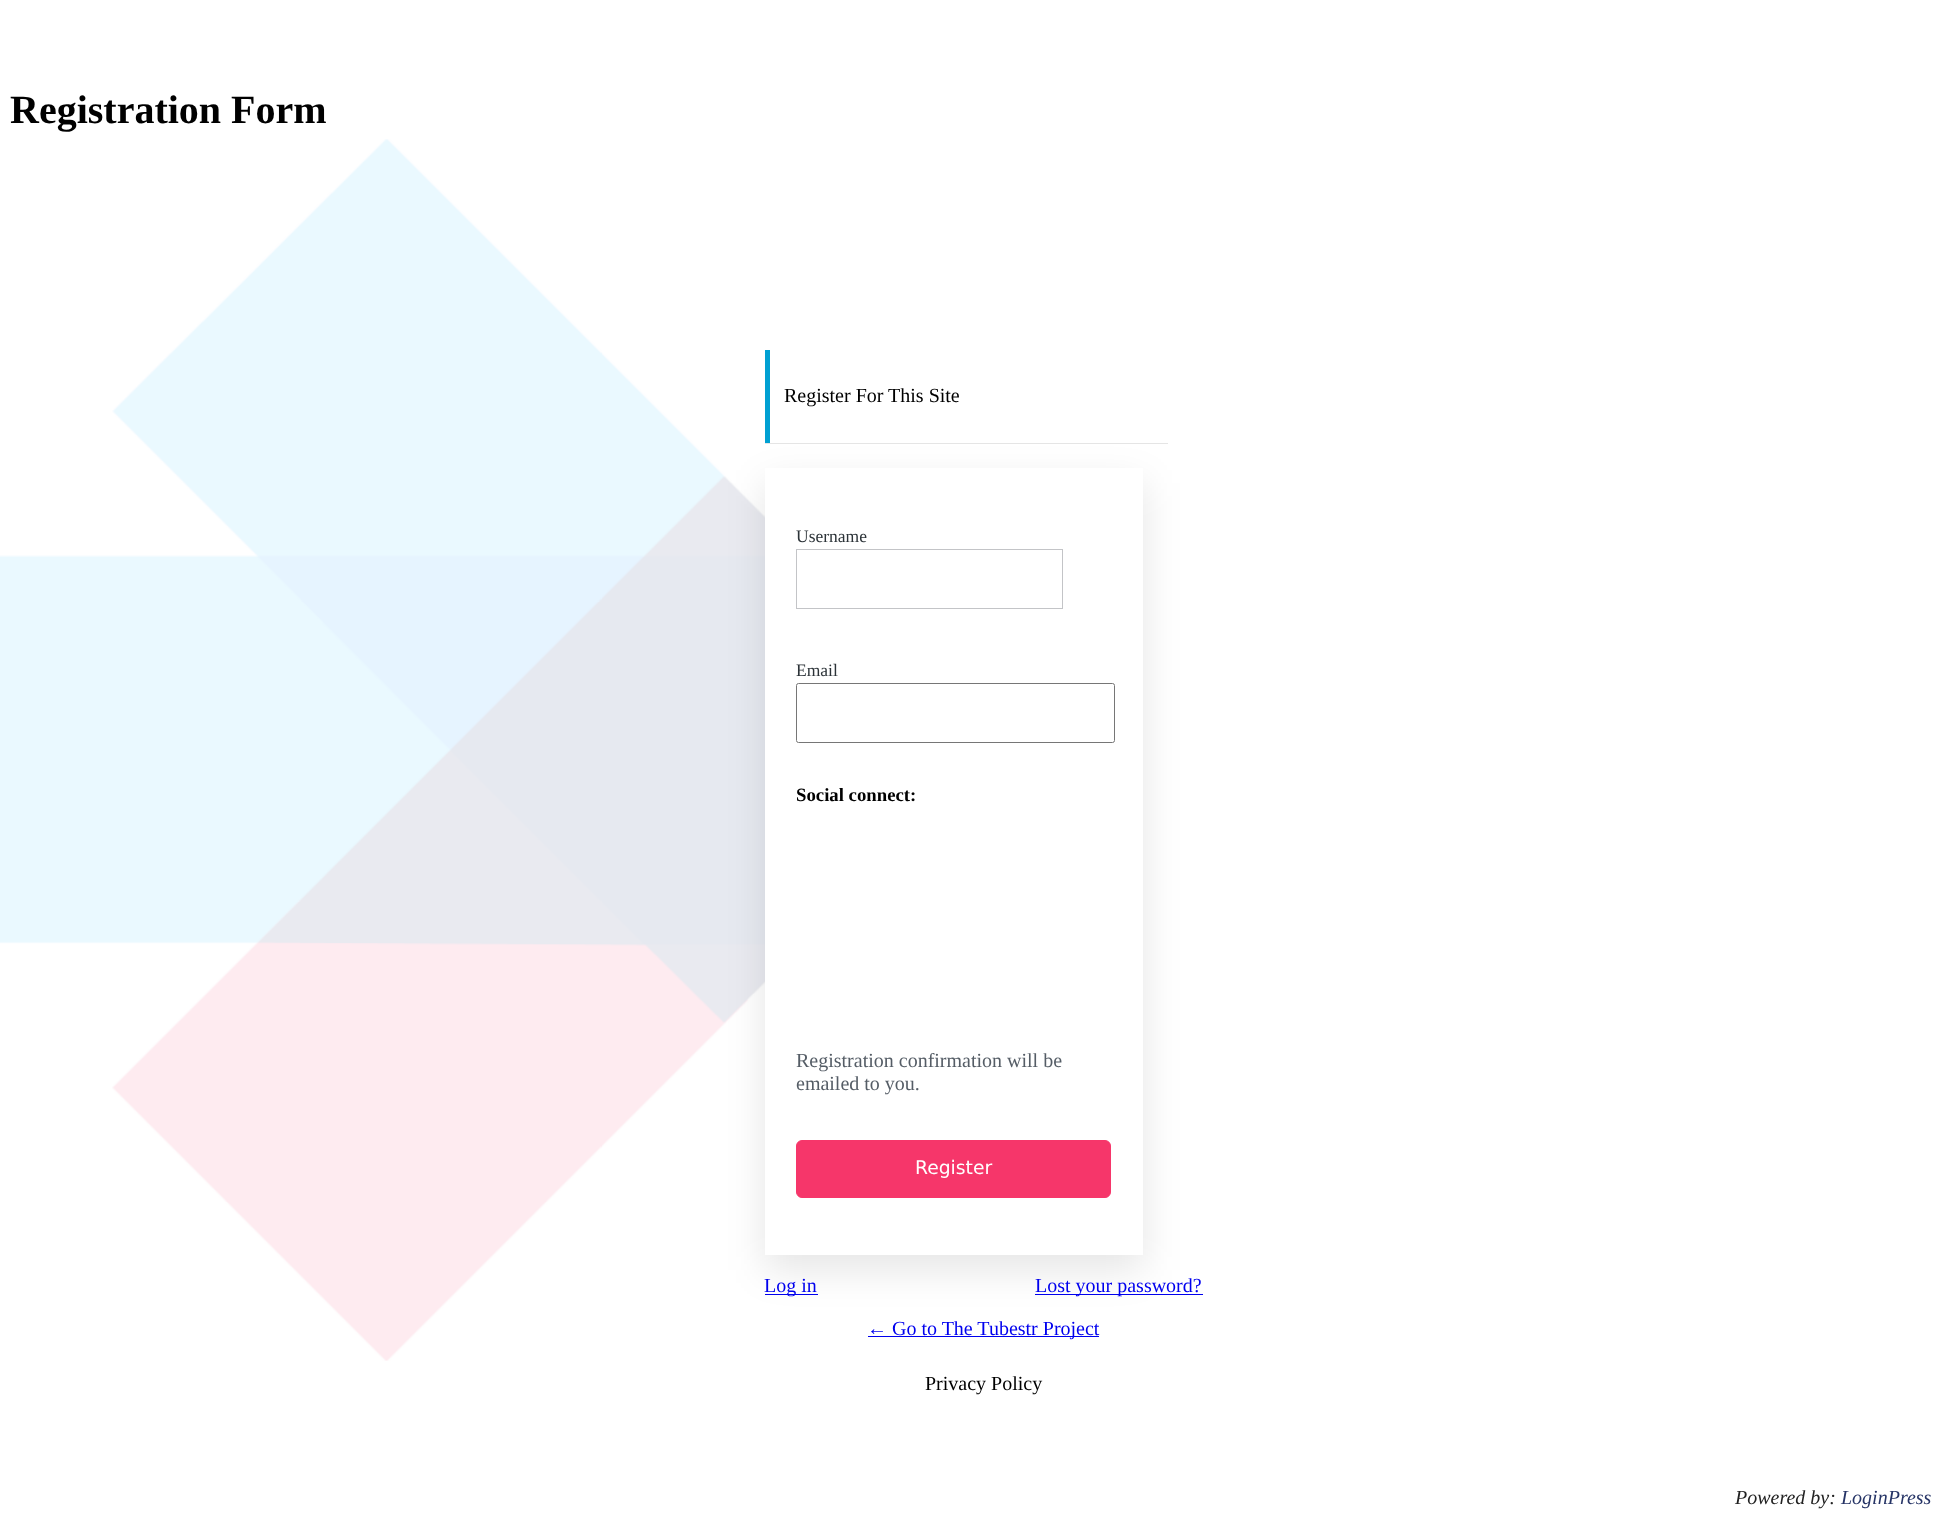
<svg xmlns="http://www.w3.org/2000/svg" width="1946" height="1515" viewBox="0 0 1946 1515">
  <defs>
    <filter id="blur1" x="-50%" y="-200%" width="200%" height="500%"><feGaussianBlur stdDeviation="0.5"/></filter>
    <filter id="blur2" x="-50%" y="-200%" width="200%" height="500%"><feGaussianBlur stdDeviation="19"/></filter>
  </defs>
  <rect width="100%" height="100%" fill="#ffffff"/>
  <image x="0" y="139" width="935" height="1222" href="img1.png"/>
  <text x="10" y="123" font-family="Liberation Serif" font-size="40" font-weight="bold" fill="#000000">Registration Form</text>
  <rect x="765" y="351" width="403" height="93" fill="#000000" fill-opacity="0.1" filter="url(#blur1)"/>
  <rect x="770" y="350" width="398" height="93" fill="#ffffff"/>
  <rect x="765" y="350" width="5" height="93" fill="#00a0d2"/>
  <text x="784" y="402" font-family="Liberation Serif" font-size="20" fill="#000000">Register For This Site</text>
  <rect x="765" y="483" width="378" height="787" fill="#000000" fill-opacity="0.1" filter="url(#blur2)"/>
  <rect x="765" y="468" width="378" height="787" fill="#ffffff"/>
  <text x="796" y="542" font-family="Liberation Serif" font-size="17.5" fill="#2c3338">Username</text>
  <rect x="796.5" y="549.5" width="266" height="59" fill="none" stroke="#c3c4c7"/>
  <text x="796" y="676" font-family="Liberation Serif" font-size="17.5" fill="#2c3338">Email</text>
  <rect x="796.5" y="683.5" width="318" height="59" rx="2" fill="none" stroke="#767676"/>
  <text x="796" y="801" font-family="Liberation Serif" font-size="18.75" font-weight="bold" fill="#000000">Social connect:</text>
  <text x="796" y="1067" font-family="Liberation Serif" font-size="20" fill="#555d66">Registration confirmation will be</text>
  <text x="796" y="1090" font-family="Liberation Serif" font-size="20" fill="#555d66">emailed to you.</text>
  <rect x="796.5" y="1140.5" width="314" height="57" rx="5.5" fill="#f6366a" stroke="#f6366a"/>
  <text x="915" y="1174" font-family="DejaVu Sans" font-size="18.75" fill="#ffffff">Register</text>
  <rect x="765" y="1294" width="53" height="1" fill="#0000ee"/>
  <text x="764" y="1292" font-family="Liberation Serif" font-size="20" fill="#0000ee">Log in</text>
  <rect x="1035" y="1294" width="168" height="1" fill="#0000ee"/>
  <text x="1035" y="1292" font-family="Liberation Serif" font-size="20" fill="#0000ee">Lost your password?</text>
  <rect x="868" y="1336" width="231" height="1" fill="#0000ee"/>
  <text x="867" y="1335" font-family="Liberation Serif" font-size="20" fill="#0000ee">← Go to The Tubestr Project</text>
  <text x="925" y="1390" font-family="Liberation Serif" font-size="20" fill="#000000">Privacy Policy</text>
  <text x="1735" y="1504" font-family="Liberation Serif" font-size="20" font-style="italic" fill="#222222">Powered by:</text>
  <text x="1841" y="1504" font-family="Liberation Serif" font-size="20" font-style="italic" fill="#263466">LoginPress</text>
</svg>
